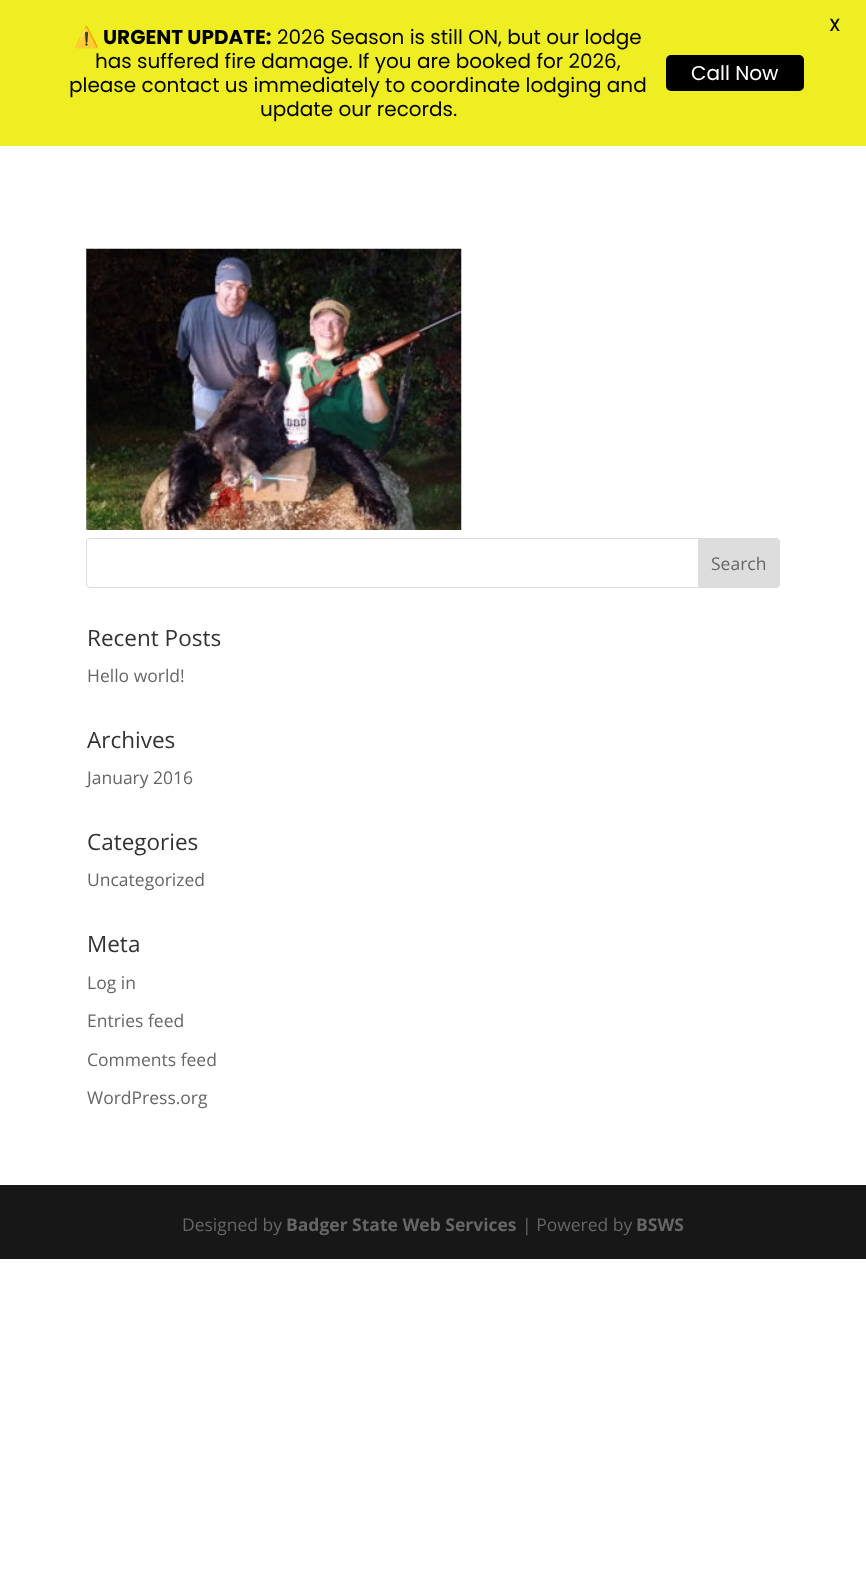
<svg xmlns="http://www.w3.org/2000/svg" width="866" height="1587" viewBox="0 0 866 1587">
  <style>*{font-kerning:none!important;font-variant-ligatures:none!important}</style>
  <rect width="100%" height="100%" fill="#ffffff"/>
  <rect x="0" y="0" width="866" height="146" fill="#eeee22"/>
  <text x="829" y="31" font-family="Poppins" font-size="17.5" font-weight="500" fill="#000000">X</text>
  <text x="74" y="44" font-family="Noto Color Emoji" font-size="20" font-weight="bold" fill="#000000">⚠️</text>
  <text x="103" y="44" font-family="Poppins" font-size="20" font-weight="bold" fill="#000000">URGENT UPDATE:</text>
  <text x="277" y="44" font-family="Poppins" font-size="20" fill="#000000">2026 Season is still ON, but our lodge</text>
  <text x="95" y="68" font-family="Poppins" font-size="20" fill="#000000">has suffered fire damage. If you are booked for 2026,</text>
  <text x="69" y="92" font-family="Poppins" font-size="20" fill="#000000">please contact us immediately to coordinate lodging and</text>
  <text x="260" y="116" font-family="Poppins" font-size="20" fill="#000000">update our records.</text>
  <rect x="666" y="55" width="138" height="36" rx="5" fill="#000000"/>
  <text x="691" y="80" font-family="Poppins" font-size="20" fill="#ffffff">Call Now</text>
  <image x="86" y="248" width="376" height="282" href="img1.png"/>
  <rect x="86.5" y="538.5" width="693" height="49" rx="3.5" fill="none" stroke="#dddddd"/>
  <path d="M698.5 538.5H776C778 538.5 779.5 540 779.5 542V584C779.5 586 778 587.5 776 587.5H698.5Z" fill="#dddddd" stroke="#dddddd"/>
  <text x="711" y="570" font-family="Open Sans" font-size="17.5" fill="#666666">Search</text>
  <text x="87" y="646" font-family="Open Sans" font-size="22.5" fill="#333333">Recent Posts</text>
  <text x="87" y="682" font-family="Open Sans" font-size="17.5" fill="#666666">Hello world!</text>
  <text x="87" y="748" font-family="Open Sans" font-size="22.5" fill="#333333">Archives</text>
  <text x="87" y="784" font-family="Open Sans" font-size="17.5" fill="#666666">January 2016</text>
  <text x="87" y="850" font-family="Open Sans" font-size="22.5" fill="#333333">Categories</text>
  <text x="87" y="886" font-family="Open Sans" font-size="17.5" fill="#666666">Uncategorized</text>
  <text x="87" y="952" font-family="Open Sans" font-size="22.5" fill="#333333">Meta</text>
  <text x="87" y="989" font-family="Open Sans" font-size="17.5" fill="#666666">Log in</text>
  <text x="87" y="1027" font-family="Open Sans" font-size="17.5" fill="#666666">Entries feed</text>
  <text x="87" y="1066" font-family="Open Sans" font-size="17.5" fill="#666666">Comments feed</text>
  <text x="87" y="1104" font-family="Open Sans" font-size="17.5" fill="#666666">WordPress.org</text>
  <rect x="0" y="1185" width="866" height="74" fill="#171717"/>
  <text x="182" y="1231" font-family="Open Sans" font-size="17.5" fill="#666666">Designed by</text>
  <text x="286" y="1231" font-family="Open Sans" font-size="17.5" font-weight="bold" fill="#666666">Badger State Web Services</text>
  <text x="522" y="1231" font-family="Open Sans" font-size="17.5" fill="#666666">| Powered by</text>
  <text x="636" y="1231" font-family="Open Sans" font-size="17.5" font-weight="bold" fill="#666666">BSWS</text>
</svg>
